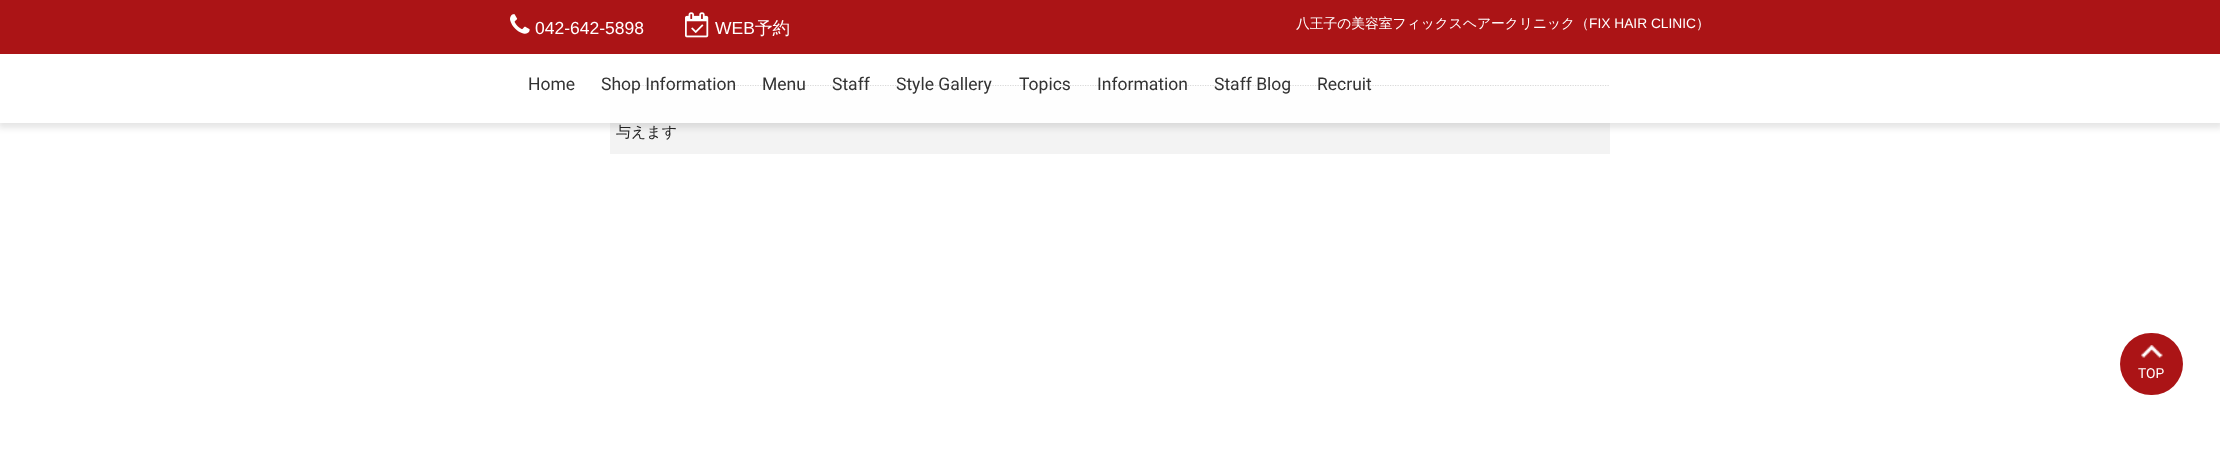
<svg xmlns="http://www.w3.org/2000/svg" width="2220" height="470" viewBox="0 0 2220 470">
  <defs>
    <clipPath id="clip1"><path d="M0 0H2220V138H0ZM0 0H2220V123H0Z" clip-rule="evenodd"/></clipPath>
    <filter id="blur1" x="-50%" y="-200%" width="200%" height="500%"><feGaussianBlur stdDeviation="3"/></filter>
  </defs>
  <rect width="100%" height="100%" fill="#ffffff"/>
  <path d="M610 85.5H1610" fill="none" stroke="#000000" stroke-width="1.2" stroke-dasharray="1.25 1.25"/>
  <rect x="610" y="86" width="1000" height="68" fill="#e8e8e8" fill-opacity="0.5"/>
  <g clip-path="url(#clip1)">
    <rect x="-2" y="0" width="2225" height="128" fill="#000000" fill-opacity="0.1" filter="url(#blur1)"/>
  </g>
  <rect x="0" y="84" width="2220" height="39" fill="#ffffff" fill-opacity="0.85"/>
  <rect x="0" y="0" width="2220" height="54" fill="#ab1416"/>
  <image x="510" y="14" width="20" height="20" href="img1.png"/>
  <text x="535" y="34" font-family="Liberation Sans" font-size="17.5" fill="#ffffff">042-642-5898</text>
  <image x="685" y="12" width="24" height="26" href="img2.png"/>
  <text x="715" y="34" font-family="Liberation Sans" font-size="17.5" fill="#ffffff">WEB</text>
  <text x="755" y="34" font-family="WenQuanYi Zen Hei" font-size="17.5" font-weight="500" fill="#ffffff">予約</text>
  <text x="1296" y="28" font-family="WenQuanYi Zen Hei" font-size="13.75" font-weight="500" fill="#ffffff">八王子の美容室フィックスヘアークリニック（</text>
  <text x="1589" y="28" font-family="Liberation Sans" font-size="13.75" fill="#ffffff">FIX HAIR CLINIC</text>
  <text x="1696" y="28" font-family="WenQuanYi Zen Hei" font-size="13.75" font-weight="500" fill="#ffffff">）</text>
  <text x="528" y="90" font-family="Roboto" font-size="17.5" fill="#333333">Home</text>
  <text x="601" y="90" font-family="Roboto" font-size="17.5" fill="#333333">Shop Information</text>
  <text x="762" y="90" font-family="Roboto" font-size="17.5" fill="#333333">Menu</text>
  <text x="832" y="90" font-family="Roboto" font-size="17.5" fill="#333333">Staff</text>
  <text x="896" y="90" font-family="Roboto" font-size="17.5" fill="#333333">Style Gallery</text>
  <text x="1019" y="90" font-family="Roboto" font-size="17.5" fill="#333333">Topics</text>
  <text x="1097" y="90" font-family="Roboto" font-size="17.5" fill="#333333">Information</text>
  <text x="1214" y="90" font-family="Roboto" font-size="17.5" fill="#333333">Staff Blog</text>
  <text x="1317" y="90" font-family="Roboto" font-size="17.5" fill="#333333">Recruit</text>
  <text x="616" y="137" font-family="WenQuanYi Zen Hei" font-size="15" font-weight="500" fill="#222222">与えます</text>
  <rect x="2120" y="333" width="63" height="62" rx="31" fill="#ab1416"/>
  <image x="2141" y="345" width="22" height="13" href="img3.png"/>
  <text x="2138" y="378" font-family="Roboto" font-size="13.75" fill="#ffffff">TOP</text>
</svg>
